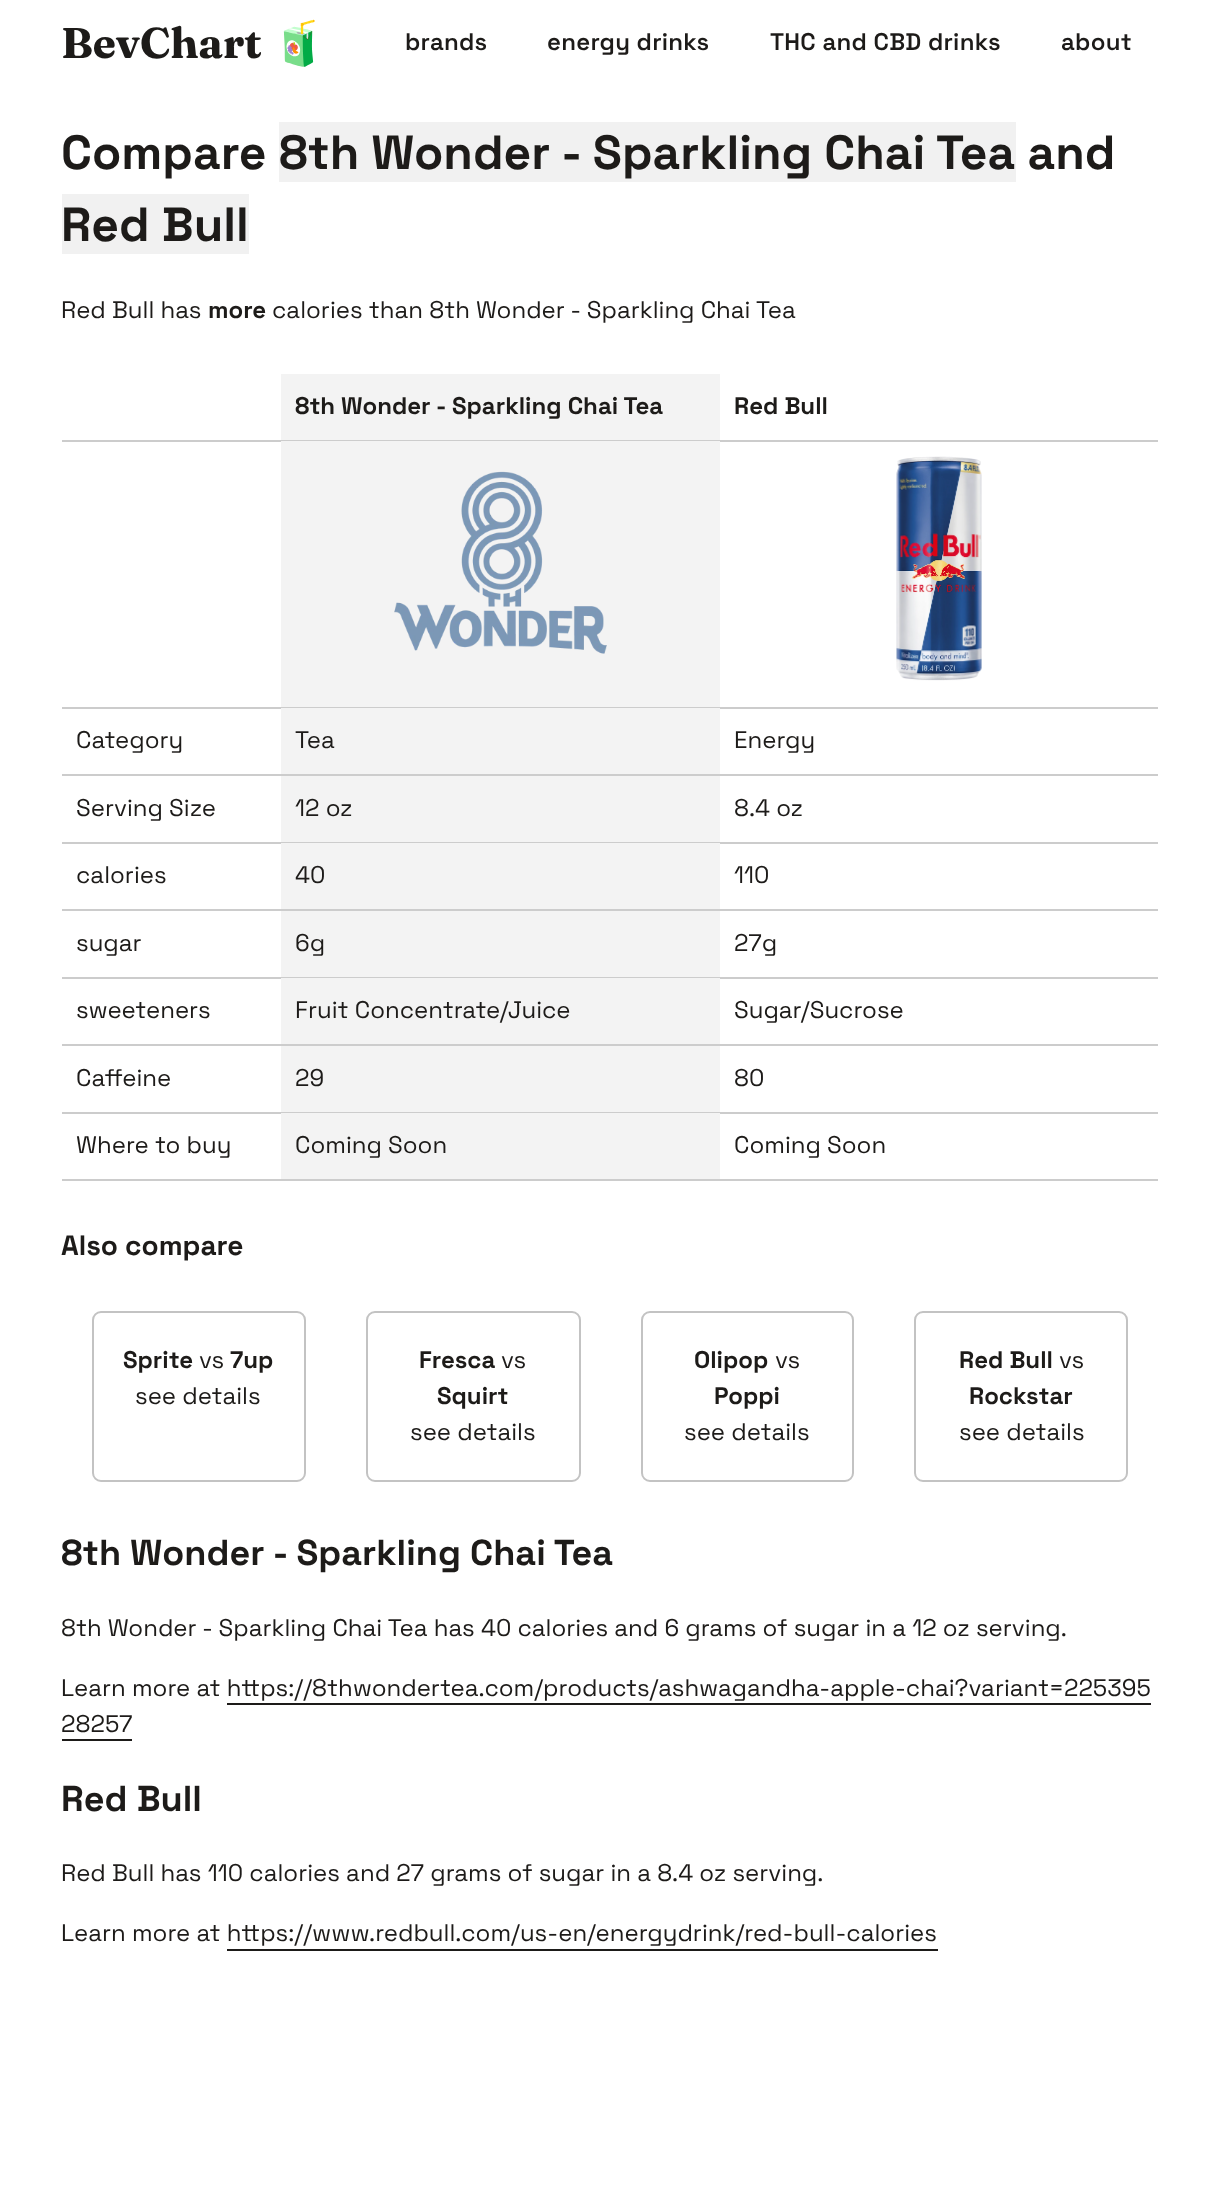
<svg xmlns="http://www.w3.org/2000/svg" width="1219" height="2189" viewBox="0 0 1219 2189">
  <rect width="100%" height="100%" fill="#ffffff"/>
  <text x="61" y="58" font-family="Fraunces" font-size="43" font-weight="bold" fill="#1d1b19">BevChart</text>
  <text x="272" y="58" font-family="Noto Color Emoji" font-size="43" font-weight="bold" fill="#1d1b19">🧃</text>
  <text x="405" y="50" font-family="Space Grotesk" font-size="24" font-weight="600" letter-spacing="0.25" fill="#1d1b19">brands</text>
  <text x="547" y="50" font-family="Space Grotesk" font-size="24" font-weight="600" letter-spacing="0.25" fill="#1d1b19">energy drinks</text>
  <text x="770" y="50" font-family="Space Grotesk" font-size="24" font-weight="600" letter-spacing="0.25" fill="#1d1b19">THC and CBD drinks</text>
  <text x="1061" y="50" font-family="Space Grotesk" font-size="24" font-weight="600" letter-spacing="0.25" fill="#1d1b19">about</text>
  <text x="61" y="169" font-family="Space Grotesk" font-size="48" font-weight="bold" fill="#1d1b19">Compare</text>
  <rect x="279" y="122" width="737" height="60" fill="#f1f1f1"/>
  <text x="279" y="169" font-family="Space Grotesk" font-size="48" font-weight="bold" fill="#1d1b19">8th Wonder - Sparkling Chai Tea and</text>
  <rect x="62" y="194" width="187" height="60" fill="#f1f1f1"/>
  <text x="61" y="241" font-family="Space Grotesk" font-size="48" font-weight="bold" fill="#1d1b19">Red Bull</text>
  <text x="61" y="318" font-family="Space Grotesk" font-size="24" fill="#1d1b19">Red Bull has</text>
  <text x="208" y="318" font-family="Space Grotesk" font-size="24" font-weight="bold" fill="#1d1b19">more</text>
  <text x="272" y="318" font-family="Space Grotesk" font-size="24" fill="#1d1b19">calories than 8th Wonder - Sparkling Chai Tea</text>
  <rect x="281" y="374" width="439" height="66" fill="#f3f3f3"/>
  <rect x="281" y="440" width="439" height="1" fill="#cccccc"/>
  <text x="295" y="414" font-family="Space Grotesk" font-size="24" font-weight="bold" fill="#1d1b19">8th Wonder - Sparkling Chai Tea</text>
  <rect x="720" y="440" width="438" height="2" fill="#cccccc"/>
  <text x="734" y="414" font-family="Space Grotesk" font-size="24" font-weight="bold" fill="#1d1b19">Red Bull</text>
  <rect x="62" y="440" width="219" height="2" fill="#cccccc"/>
  <rect x="281" y="441" width="439" height="266" fill="#f3f3f3"/>
  <rect x="281" y="707" width="439" height="1" fill="#cccccc"/>
  <image x="394" y="471" width="213" height="183" href="img1.png"/>
  <rect x="720" y="707" width="438" height="2" fill="#cccccc"/>
  <image x="896" y="456" width="86" height="225" href="img2.png"/>
  <rect x="62" y="707" width="219" height="2" fill="#cccccc"/>
  <rect x="62" y="774" width="1096" height="2" fill="#cccccc"/>
  <text x="76" y="748" font-family="Space Grotesk" font-size="24" fill="#1d1b19">Category</text>
  <rect x="281" y="708" width="439" height="66" fill="#f3f3f3"/>
  <text x="295" y="748" font-family="Space Grotesk" font-size="24" fill="#1d1b19">Tea</text>
  <text x="734" y="748" font-family="Space Grotesk" font-size="24" fill="#1d1b19">Energy</text>
  <rect x="62" y="842" width="219" height="2" fill="#cccccc"/>
  <text x="76" y="816" font-family="Space Grotesk" font-size="24" fill="#1d1b19">Serving Size</text>
  <rect x="281" y="776" width="439" height="66" fill="#f3f3f3"/>
  <rect x="281" y="842" width="439" height="1" fill="#cccccc"/>
  <text x="295" y="816" font-family="Space Grotesk" font-size="24" fill="#1d1b19">12 oz</text>
  <rect x="720" y="842" width="438" height="2" fill="#cccccc"/>
  <text x="734" y="816" font-family="Space Grotesk" font-size="24" fill="#1d1b19">8.4 oz</text>
  <rect x="62" y="909" width="1096" height="2" fill="#cccccc"/>
  <text x="76" y="883" font-family="Space Grotesk" font-size="24" fill="#1d1b19">calories</text>
  <rect x="281" y="843" width="439" height="66" fill="#f3f3f3"/>
  <text x="295" y="883" font-family="Space Grotesk" font-size="24" fill="#1d1b19">40</text>
  <text x="734" y="883" font-family="Space Grotesk" font-size="24" fill="#1d1b19">110</text>
  <rect x="62" y="977" width="219" height="2" fill="#cccccc"/>
  <text x="76" y="951" font-family="Space Grotesk" font-size="24" fill="#1d1b19">sugar</text>
  <rect x="281" y="911" width="439" height="66" fill="#f3f3f3"/>
  <rect x="281" y="977" width="439" height="1" fill="#cccccc"/>
  <text x="295" y="951" font-family="Space Grotesk" font-size="24" fill="#1d1b19">6g</text>
  <rect x="720" y="977" width="438" height="2" fill="#cccccc"/>
  <text x="734" y="951" font-family="Space Grotesk" font-size="24" fill="#1d1b19">27g</text>
  <rect x="62" y="1044" width="1096" height="2" fill="#cccccc"/>
  <text x="76" y="1018" font-family="Space Grotesk" font-size="24" fill="#1d1b19">sweeteners</text>
  <rect x="281" y="978" width="439" height="66" fill="#f3f3f3"/>
  <text x="295" y="1018" font-family="Space Grotesk" font-size="24" fill="#1d1b19">Fruit Concentrate/Juice</text>
  <text x="734" y="1018" font-family="Space Grotesk" font-size="24" fill="#1d1b19">Sugar/Sucrose</text>
  <rect x="62" y="1112" width="219" height="2" fill="#cccccc"/>
  <text x="76" y="1086" font-family="Space Grotesk" font-size="24" fill="#1d1b19">Caffeine</text>
  <rect x="281" y="1046" width="439" height="66" fill="#f3f3f3"/>
  <rect x="281" y="1112" width="439" height="1" fill="#cccccc"/>
  <text x="295" y="1086" font-family="Space Grotesk" font-size="24" fill="#1d1b19">29</text>
  <rect x="720" y="1112" width="438" height="2" fill="#cccccc"/>
  <text x="734" y="1086" font-family="Space Grotesk" font-size="24" fill="#1d1b19">80</text>
  <rect x="62" y="1179" width="1096" height="2" fill="#cccccc"/>
  <text x="76" y="1153" font-family="Space Grotesk" font-size="24" fill="#1d1b19">Where to buy</text>
  <rect x="281" y="1113" width="439" height="66" fill="#f3f3f3"/>
  <text x="295" y="1153" font-family="Space Grotesk" font-size="24" fill="#1d1b19">Coming Soon</text>
  <text x="734" y="1153" font-family="Space Grotesk" font-size="24" fill="#1d1b19">Coming Soon</text>
  <text x="61" y="1255" font-family="Space Grotesk" font-size="28" font-weight="bold" fill="#1d1b19">Also compare</text>
  <rect x="93" y="1312" width="212" height="169" rx="8" fill="none" stroke="#c3c3c3" stroke-width="2"/>
  <text x="123" y="1368" font-family="Space Grotesk" font-size="24" font-weight="bold" fill="#1d1b19">Sprite</text>
  <text x="199" y="1368" font-family="Space Grotesk" font-size="24" fill="#1d1b19">vs</text>
  <text x="230" y="1368" font-family="Space Grotesk" font-size="24" font-weight="bold" fill="#1d1b19">7up</text>
  <text x="135" y="1404" font-family="Space Grotesk" font-size="24" fill="#1d1b19">see details</text>
  <rect x="367" y="1312" width="213" height="169" rx="8" fill="none" stroke="#c3c3c3" stroke-width="2"/>
  <text x="419" y="1368" font-family="Space Grotesk" font-size="24" font-weight="bold" fill="#1d1b19">Fresca</text>
  <text x="501" y="1368" font-family="Space Grotesk" font-size="24" fill="#1d1b19">vs</text>
  <text x="437" y="1404" font-family="Space Grotesk" font-size="24" font-weight="bold" fill="#1d1b19">Squirt</text>
  <text x="410" y="1440" font-family="Space Grotesk" font-size="24" fill="#1d1b19">see details</text>
  <rect x="642" y="1312" width="211" height="169" rx="8" fill="none" stroke="#c3c3c3" stroke-width="2"/>
  <text x="694" y="1368" font-family="Space Grotesk" font-size="24" font-weight="bold" fill="#1d1b19">Olipop</text>
  <text x="775" y="1368" font-family="Space Grotesk" font-size="24" fill="#1d1b19">vs</text>
  <text x="714" y="1404" font-family="Space Grotesk" font-size="24" font-weight="bold" fill="#1d1b19">Poppi</text>
  <text x="684" y="1440" font-family="Space Grotesk" font-size="24" fill="#1d1b19">see details</text>
  <rect x="915" y="1312" width="212" height="169" rx="8" fill="none" stroke="#c3c3c3" stroke-width="2"/>
  <text x="959" y="1368" font-family="Space Grotesk" font-size="24" font-weight="bold" fill="#1d1b19">Red Bull</text>
  <text x="1059" y="1368" font-family="Space Grotesk" font-size="24" fill="#1d1b19">vs</text>
  <text x="969" y="1404" font-family="Space Grotesk" font-size="24" font-weight="bold" fill="#1d1b19">Rockstar</text>
  <text x="959" y="1440" font-family="Space Grotesk" font-size="24" fill="#1d1b19">see details</text>
  <text x="61" y="1565" font-family="Space Grotesk" font-size="36" font-weight="bold" fill="#1d1b19">8th Wonder - Sparkling Chai Tea</text>
  <text x="61" y="1636" font-family="Space Grotesk" font-size="24" fill="#1d1b19">8th Wonder - Sparkling Chai Tea has 40 calories and 6 grams of sugar in a 12 oz serving.</text>
  <text x="61" y="1696" font-family="Space Grotesk" font-size="24" fill="#1d1b19">Learn more at https://8thwondertea.com/products/ashwagandha-apple-chai?variant=225395</text>
  <text x="61" y="1732" font-family="Space Grotesk" font-size="24" fill="#1d1b19">28257</text>
  <rect x="227" y="1703" width="924" height="2" fill="#1d1b19"/>
  <rect x="62" y="1739" width="70" height="2" fill="#1d1b19"/>
  <text x="61" y="1811" font-family="Space Grotesk" font-size="36" font-weight="bold" fill="#1d1b19">Red Bull</text>
  <text x="61" y="1881" font-family="Space Grotesk" font-size="24" fill="#1d1b19">Red Bull has 110 calories and 27 grams of sugar in a 8.4 oz serving.</text>
  <text x="61" y="1941" font-family="Space Grotesk" font-size="24" fill="#1d1b19">Learn more at https://www.redbull.com/us-en/energydrink/red-bull-calories</text>
  <rect x="227" y="1949" width="711" height="2" fill="#1d1b19"/>
</svg>
